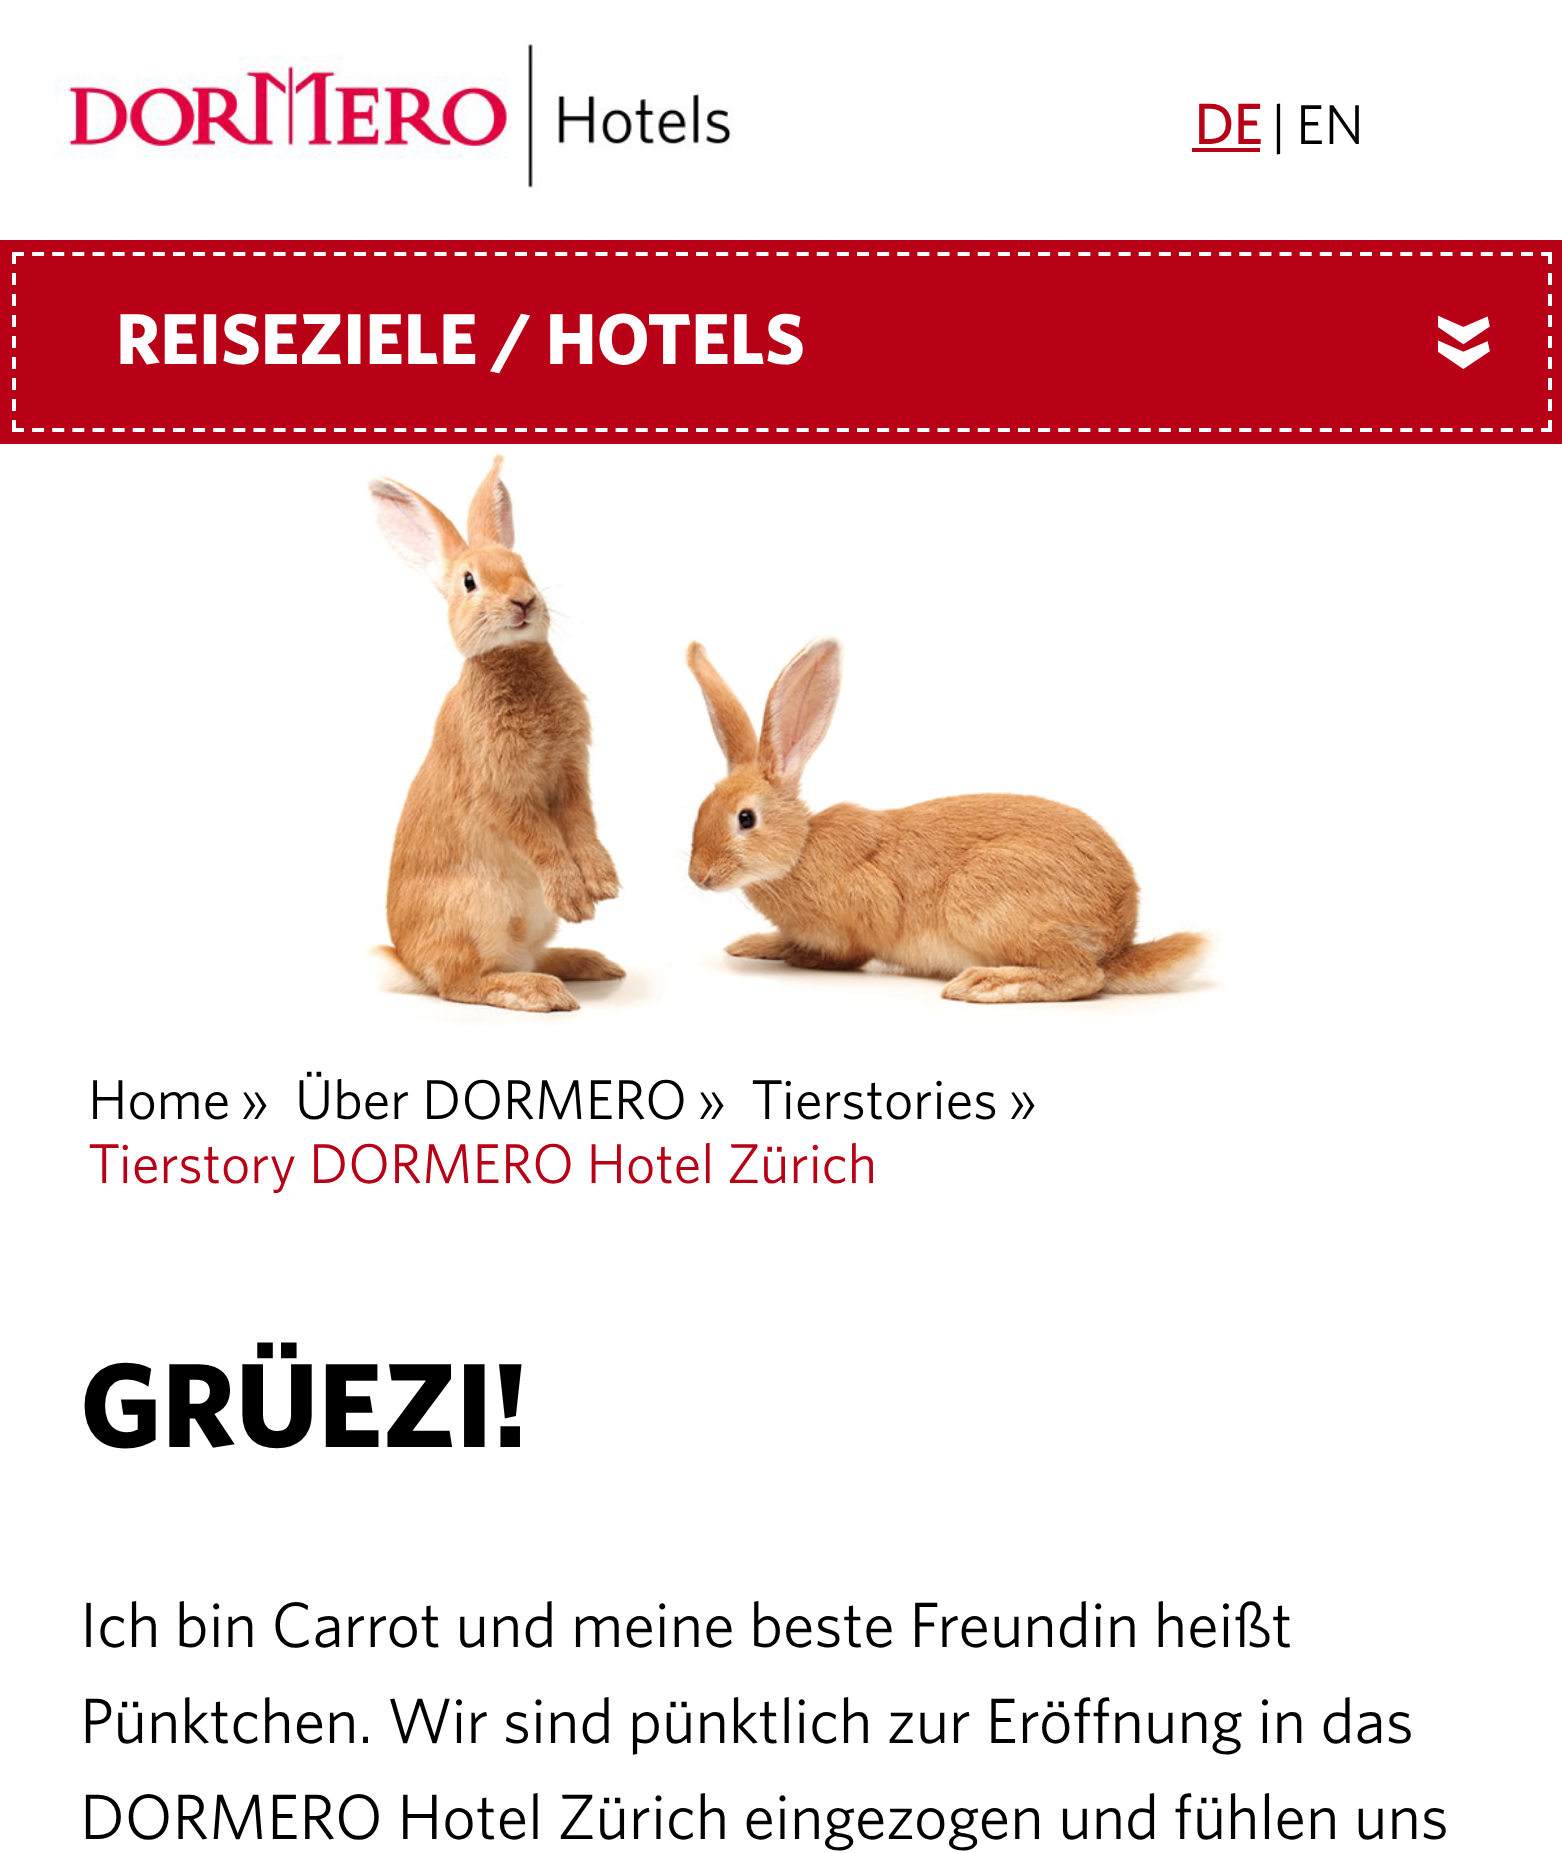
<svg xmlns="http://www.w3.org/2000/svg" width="1562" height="1853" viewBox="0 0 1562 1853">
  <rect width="100%" height="100%" fill="#ffffff"/>
  <image x="54" y="44" width="679" height="146" href="img1.png"/>
  <text x="1194" y="144" font-family="'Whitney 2'" font-size="56" font-weight="bold" fill="#b80016">DE</text>
  <rect x="1192" y="148" width="68" height="4" fill="#b80016"/>
  <text x="1271" y="144" font-family="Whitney" font-size="56" fill="#000000">|</text>
  <text x="1296" y="144" font-family="Whitney" font-size="56" fill="#000000">EN</text>
  <rect x="0" y="240" width="1562" height="204" fill="#b80016"/>
  <path d="M12 254H1552" fill="none" stroke="#ffffff" stroke-width="4" stroke-dasharray="12 8.12"/>
  <path d="M1550 252V432" fill="none" stroke="#ffffff" stroke-width="4" stroke-dasharray="12 9"/>
  <path d="M12 430H1552" fill="none" stroke="#ffffff" stroke-width="4" stroke-dasharray="12 8.12"/>
  <path d="M14 252V432" fill="none" stroke="#ffffff" stroke-width="4" stroke-dasharray="12 9"/>
  <text x="116" y="364" font-family="Whitney" font-size="72" font-weight="bold" fill="#ffffff">REISEZIELE / HOTELS</text>
  <text x="1438" y="312" transform="rotate(90 1438 312)" font-family="Whitney" font-size="104" font-weight="bold" fill="#ffffff">»</text>
  <image x="363" y="451" width="863" height="575" href="img2.png"/>
  <text x="88" y="1119" font-family="Whitney" font-size="56" fill="#000000">Home</text>
  <text x="240" y="1119" font-family="Whitney" font-size="56" fill="#000000">»</text>
  <text x="295" y="1119" font-family="Whitney" font-size="56" fill="#000000">Über DORMERO</text>
  <text x="697" y="1119" font-family="Whitney" font-size="56" fill="#000000">»</text>
  <text x="751" y="1119" font-family="Whitney" font-size="56" fill="#000000">Tierstories</text>
  <text x="1008" y="1119" font-family="Whitney" font-size="56" fill="#000000">»</text>
  <text x="88" y="1183" font-family="Whitney" font-size="56" fill="#b80016">Tierstory DORMERO Hotel Zürich</text>
  <text x="80" y="1447" font-family="Whitney" font-size="120" font-weight="bold" fill="#000000">GRÜEZI!</text>
  <text x="80" y="1647" font-family="Whitney" font-size="64" fill="#000000">Ich bin Carrot und meine beste Freundin heißt</text>
  <text x="80" y="1743" font-family="Whitney" font-size="64" fill="#000000">Pünktchen. Wir sind pünktlich zur Eröffnung in das</text>
  <text x="80" y="1839" font-family="Whitney" font-size="64" fill="#000000">DORMERO Hotel Zürich eingezogen und fühlen uns</text>
</svg>
